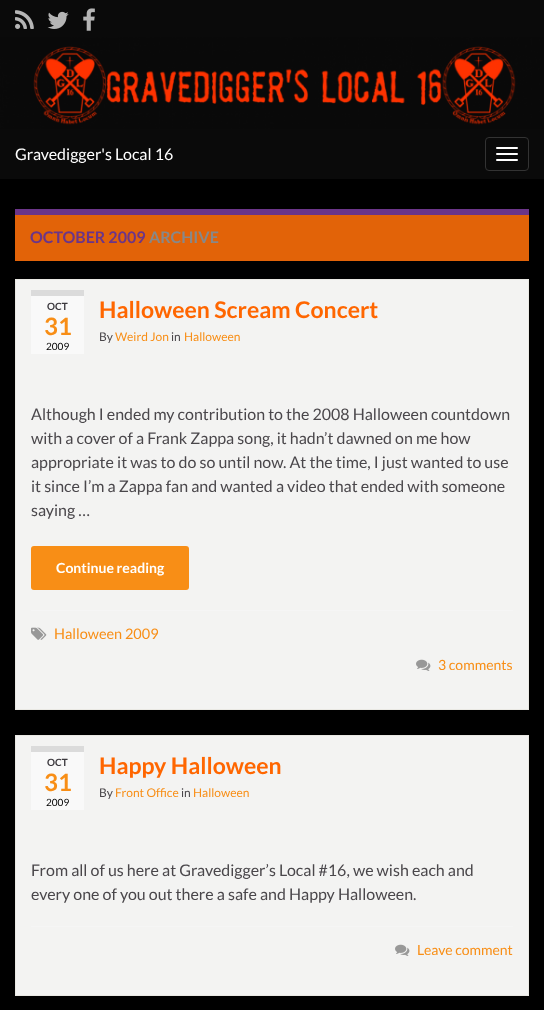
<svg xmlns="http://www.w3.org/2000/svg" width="544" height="1010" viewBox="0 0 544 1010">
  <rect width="100%" height="100%" fill="#0a0a0a"/>
  <image x="15" y="10" width="19" height="19" href="img1.png"/>
  <image x="47" y="11" width="22" height="18" href="img2.png"/>
  <image x="83" y="8" width="12" height="23" href="img3.png"/>
  <image x="0" y="37" width="544" height="92" href="img4.png"/>
  <text x="15" y="160" font-family="Lato" font-size="16" fill="#ffffff">Gravedigger's Local 16</text>
  <rect x="485.5" y="137.5" width="43" height="33" rx="3.5" fill="none" stroke="#333333"/>
  <rect x="496" y="147" width="22" height="2" rx="1" fill="#ffffff"/>
  <rect x="496" y="153" width="22" height="2" rx="1" fill="#ffffff"/>
  <rect x="496" y="159" width="22" height="2" rx="1" fill="#ffffff"/>
  <rect x="0" y="179" width="544" height="831" fill="#000000"/>
  <rect x="15" y="215" width="514" height="46" fill="#e26308"/>
  <rect x="15" y="209" width="514" height="6" fill="#6b3589"/>
  <text x="30" y="243" font-family="Lato" font-size="16" font-weight="bold" fill="#6b3589">OCTOBER 2009</text>
  <text x="149" y="243" font-family="Lato" font-size="16" font-weight="bold" fill="#888888">ARCHIVE</text>
  <rect x="15.5" y="279.5" width="513" height="430" fill="#f3f3f2" stroke="#e9e8e3"/>
  <rect x="31" y="296" width="53" height="58" fill="#f9f9f9"/>
  <rect x="31" y="290" width="53" height="6" fill="#dbdbdb"/>
  <text x="47" y="310" font-family="Lato" font-size="10" font-weight="bold" fill="#3b383d">OCT</text>
  <text x="44" y="335" font-family="Lato" font-size="24" font-weight="bold" fill="#f88e16">31</text>
  <text x="46" y="350" font-family="Lato" font-size="10" fill="#000000">2009</text>
  <text x="99" y="318" font-family="Lato" font-size="23" font-weight="bold" fill="#ff6600">Halloween Scream Concert</text>
  <text x="99" y="341" font-family="Lato" font-size="12" fill="#4a474b">By</text>
  <text x="115" y="341" font-family="Lato" font-size="12" fill="#f88e16">Weird Jon</text>
  <text x="171" y="341" font-family="Lato" font-size="12" fill="#4a474b">in</text>
  <text x="184" y="341" font-family="Lato" font-size="12" fill="#f88e16">Halloween</text>
  <text x="31" y="420" font-family="Lato" font-size="16" fill="#4a474b">Although I ended my contribution to the 2008 Halloween countdown</text>
  <text x="31" y="444" font-family="Lato" font-size="16" fill="#4a474b">with a cover of a Frank Zappa song, it hadn’t dawned on me how</text>
  <text x="31" y="468" font-family="Lato" font-size="16" fill="#4a474b">appropriate it was to do so until now. At the time, I just wanted to use</text>
  <text x="31" y="492" font-family="Lato" font-size="16" fill="#4a474b">it since I’m a Zappa fan and wanted a video that ended with someone</text>
  <text x="31" y="516" font-family="Lato" font-size="16" fill="#4a474b">saying …</text>
  <rect x="31" y="546" width="158" height="44" rx="3" fill="#f88e16"/>
  <text x="56" y="573" font-family="Lato" font-size="14" font-weight="bold" fill="#ffffff">Continue reading</text>
  <rect x="31" y="610" width="482" height="1" fill="#f5f5f5"/>
  <image x="31" y="627" width="16" height="13" href="img5.png"/>
  <text x="54" y="639" font-family="Lato" font-size="14.5" fill="#f88e16">Halloween 2009</text>
  <image x="416" y="659" width="15" height="12" href="img6.png"/>
  <text x="438" y="670" font-family="Lato" font-size="14" fill="#f88e16">3 comments</text>
  <rect x="15.5" y="735.5" width="513" height="260" fill="#f3f3f2" stroke="#e9e8e3"/>
  <rect x="31" y="752" width="53" height="58" fill="#f9f9f9"/>
  <rect x="31" y="746" width="53" height="6" fill="#dbdbdb"/>
  <text x="47" y="766" font-family="Lato" font-size="10" font-weight="bold" fill="#3b383d">OCT</text>
  <text x="44" y="791" font-family="Lato" font-size="24" font-weight="bold" fill="#f88e16">31</text>
  <text x="46" y="806" font-family="Lato" font-size="10" fill="#000000">2009</text>
  <text x="99" y="774" font-family="Lato" font-size="23" font-weight="bold" fill="#ff6600">Happy Halloween</text>
  <text x="99" y="797" font-family="Lato" font-size="12" fill="#4a474b">By</text>
  <text x="115" y="797" font-family="Lato" font-size="12" fill="#f88e16">Front Office</text>
  <text x="181" y="797" font-family="Lato" font-size="12" fill="#4a474b">in</text>
  <text x="193" y="797" font-family="Lato" font-size="12" fill="#f88e16">Halloween</text>
  <text x="31" y="876" font-family="Lato" font-size="16" fill="#4a474b">From all of us here at Gravedigger’s Local #16, we wish each and</text>
  <text x="31" y="900" font-family="Lato" font-size="16" fill="#4a474b">every one of you out there a safe and Happy Halloween.</text>
  <rect x="31" y="926" width="482" height="1" fill="#f5f5f5"/>
  <image x="395" y="944" width="15" height="12" href="img6.png"/>
  <text x="417" y="955" font-family="Lato" font-size="14" fill="#f88e16">Leave comment</text>
</svg>
